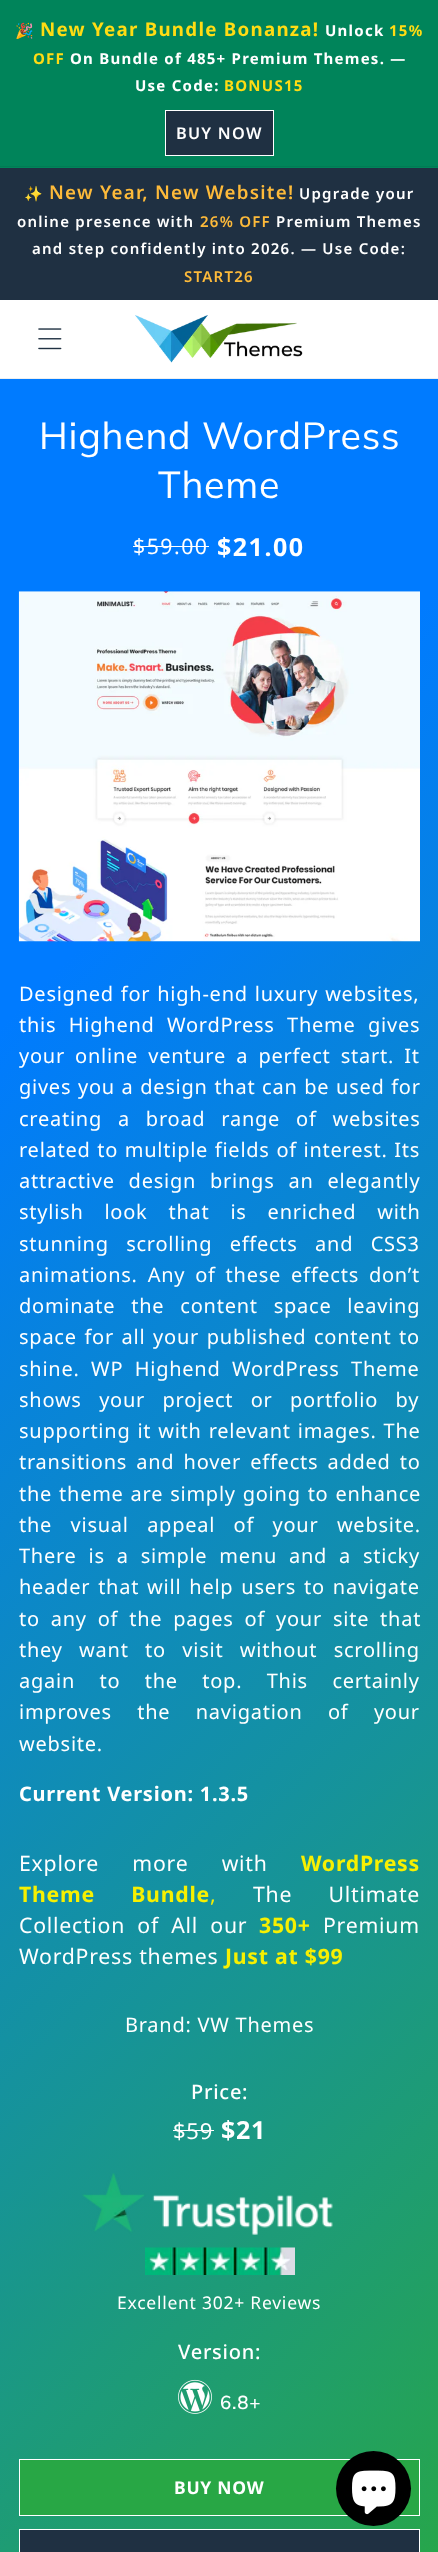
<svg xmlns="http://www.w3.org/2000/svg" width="438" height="2552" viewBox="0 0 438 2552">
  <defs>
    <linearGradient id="g1" gradientUnits="userSpaceOnUse" x1="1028" y1="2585" x2="-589" y2="968"><stop offset="0.17" stop-color="#28a745"/><stop offset="0.8" stop-color="#007bff"/></linearGradient>
  </defs>
  <rect width="100%" height="100%" fill="#ffffff"/>
  <rect x="0" y="0" width="438" height="168" fill="#00845a"/>
  <rect x="0" y="166" width="438" height="1" fill="#017b54"/>
  <text x="15" y="36" font-family="Noto Color Emoji" font-size="15" font-weight="bold" letter-spacing="1.25" fill="#ffffff">🎉</text>
  <text x="40" y="36" font-family="Noto Sans" font-size="18.75" font-weight="bold" letter-spacing="1.25" fill="#ffdc13">New Year Bundle Bonanza!</text>
  <text x="325" y="36" font-family="Noto Sans" font-size="15" font-weight="bold" letter-spacing="1.25" fill="#ffffff">Unlock</text>
  <text x="389" y="36" font-family="Noto Sans" font-size="15" font-weight="bold" letter-spacing="1.25" fill="#ffdc13">15%</text>
  <text x="33" y="64" font-family="Noto Sans" font-size="15" font-weight="bold" letter-spacing="1.25" fill="#ffdc13">OFF</text>
  <text x="70" y="64" font-family="Noto Sans" font-size="15" font-weight="bold" letter-spacing="1.25" fill="#ffffff">On Bundle of 485+ Premium Themes. —</text>
  <text x="135" y="91" font-family="Noto Sans" font-size="15" font-weight="bold" letter-spacing="1.25" fill="#ffffff">Use Code:</text>
  <text x="224" y="91" font-family="Noto Sans" font-size="15" font-weight="bold" letter-spacing="1.25" fill="#ffdc13">BONUS15</text>
  <rect x="165.5" y="110.5" width="108" height="45" fill="#1f3042" stroke="#ffffff"/>
  <text x="176" y="139" font-family="Noto Sans" font-size="16.25" font-weight="600" letter-spacing="1.25" fill="#ffffff">BUY NOW</text>
  <rect x="0" y="168" width="438" height="132" fill="#1f3042"/>
  <text x="24" y="199" font-family="Noto Color Emoji" font-size="15" letter-spacing="1.25" fill="#ffffff">✨</text>
  <text x="49" y="199" font-family="Noto Sans" font-size="18.75" font-weight="600" letter-spacing="1.25" fill="#fdba3a">New Year, New Website!</text>
  <text x="299" y="199" font-family="Noto Sans" font-size="15" font-weight="600" letter-spacing="1.25" fill="#ffffff">Upgrade your</text>
  <text x="17" y="227" font-family="Noto Sans" font-size="15" font-weight="600" letter-spacing="1.25" fill="#ffffff">online presence with</text>
  <text x="200" y="227" font-family="Noto Sans" font-size="15" font-weight="600" letter-spacing="1.25" fill="#fdba3a">26% OFF</text>
  <text x="276" y="227" font-family="Noto Sans" font-size="15" font-weight="600" letter-spacing="1.25" fill="#ffffff">Premium Themes</text>
  <text x="32" y="254" font-family="Noto Sans" font-size="15" font-weight="600" letter-spacing="1.25" fill="#ffffff">and step confidently into 2026. — Use Code:</text>
  <text x="184" y="282" font-family="Noto Sans" font-size="15" font-weight="600" letter-spacing="1.25" fill="#fdba3a">START26</text>
  <rect x="0" y="378" width="438" height="1" fill="#edeff0"/>
  <image x="38" y="328" width="24" height="22" href="img1.png"/>
  <image x="135" y="315" width="168" height="48" href="img2.png"/>
  <rect x="0" y="379" width="438" height="2173" fill="url(#g1)"/>
  <text x="39" y="449" font-family="Muli" font-size="37.5" letter-spacing="0.75" fill="#ffffff">Highend WordPress</text>
  <text x="158" y="498" font-family="Muli" font-size="37.5" letter-spacing="0.75" fill="#ffffff">Theme</text>
  <text x="133" y="554" font-family="Noto Sans" font-size="21.25" letter-spacing="1.5" fill="#ffffff">$59.00</text>
  <rect x="133" y="546" width="76" height="1" fill="#ffffff"/>
  <text x="217" y="556" font-family="Noto Sans" font-size="25" font-weight="bold" letter-spacing="1.5" fill="#ffffff">$21.00</text>
  <image x="18" y="591" width="402" height="351" href="img3.png"/>
  <text x="19" y="1001" word-spacing="1" font-family="Noto Sans" font-size="20" letter-spacing="0.75" fill="#ffffff">Designed for high-end luxury websites,</text>
  <text x="19" y="1032" word-spacing="6.5" font-family="Noto Sans" font-size="20" letter-spacing="0.75" fill="#ffffff">this Highend WordPress Theme gives</text>
  <text x="19" y="1063" word-spacing="4.25" font-family="Noto Sans" font-size="20" letter-spacing="0.75" fill="#ffffff">your online venture a perfect start. It</text>
  <text x="19" y="1094" word-spacing="0.75" font-family="Noto Sans" font-size="20" letter-spacing="0.75" fill="#ffffff">gives you a design that can be used for</text>
  <text x="19" y="1126" word-spacing="10" font-family="Noto Sans" font-size="20" letter-spacing="0.75" fill="#ffffff">creating a broad range of websites</text>
  <text x="19" y="1157" word-spacing="0.75" font-family="Noto Sans" font-size="20" letter-spacing="0.75" fill="#ffffff">related to multiple fields of interest. Its</text>
  <text x="19" y="1188" word-spacing="8" font-family="Noto Sans" font-size="20" letter-spacing="0.75" fill="#ffffff">attractive design brings an elegantly</text>
  <text x="19" y="1219" word-spacing="15" font-family="Noto Sans" font-size="20" letter-spacing="0.75" fill="#ffffff">stylish look that is enriched with</text>
  <text x="19" y="1251" word-spacing="11.5" font-family="Noto Sans" font-size="20" letter-spacing="0.75" fill="#ffffff">stunning scrolling effects and CSS3</text>
  <text x="19" y="1282" word-spacing="4" font-family="Noto Sans" font-size="20" letter-spacing="0.75" fill="#ffffff">animations. Any of these effects don’t</text>
  <text x="19" y="1313" word-spacing="10" font-family="Noto Sans" font-size="20" letter-spacing="0.75" fill="#ffffff">dominate the content space leaving</text>
  <text x="19" y="1344" word-spacing="1.75" font-family="Noto Sans" font-size="20" letter-spacing="0.75" fill="#ffffff">space for all your published content to</text>
  <text x="19" y="1376" word-spacing="5.5" font-family="Noto Sans" font-size="20" letter-spacing="0.75" fill="#ffffff">shine. WP Highend WordPress Theme</text>
  <text x="19" y="1407" word-spacing="11.5" font-family="Noto Sans" font-size="20" letter-spacing="0.75" fill="#ffffff">shows your project or portfolio by</text>
  <text x="19" y="1438" word-spacing="1" font-family="Noto Sans" font-size="20" letter-spacing="0.75" fill="#ffffff">supporting it with relevant images. The</text>
  <text x="19" y="1469" word-spacing="3.25" font-family="Noto Sans" font-size="20" letter-spacing="0.75" fill="#ffffff">transitions and hover effects added to</text>
  <text x="19" y="1501" word-spacing="1" font-family="Noto Sans" font-size="20" letter-spacing="0.75" fill="#ffffff">the theme are simply going to enhance</text>
  <text x="19" y="1532" word-spacing="12.5" font-family="Noto Sans" font-size="20" letter-spacing="0.75" fill="#ffffff">the visual appeal of your website.</text>
  <text x="19" y="1563" word-spacing="6" font-family="Noto Sans" font-size="20" letter-spacing="0.75" fill="#ffffff">There is a simple menu and a sticky</text>
  <text x="19" y="1594" word-spacing="2" font-family="Noto Sans" font-size="20" letter-spacing="0.75" fill="#ffffff">header that will help users to navigate</text>
  <text x="19" y="1626" word-spacing="5" font-family="Noto Sans" font-size="20" letter-spacing="0.75" fill="#ffffff">to any of the pages of your site that</text>
  <text x="19" y="1657" word-spacing="10.5" font-family="Noto Sans" font-size="20" letter-spacing="0.75" fill="#ffffff">they want to visit without scrolling</text>
  <text x="19" y="1688" word-spacing="18.5" font-family="Noto Sans" font-size="20" letter-spacing="0.75" fill="#ffffff">again to the top. This certainly</text>
  <text x="19" y="1719" word-spacing="19.5" font-family="Noto Sans" font-size="20" letter-spacing="0.75" fill="#ffffff">improves the navigation of your</text>
  <text x="19" y="1751" font-family="Noto Sans" font-size="20" letter-spacing="0.75" fill="#ffffff">website.</text>
  <text x="19" y="1801" font-family="Noto Sans" font-size="20" font-weight="bold" letter-spacing="0.75" fill="#ffffff">Current Version: 1.3.5</text>
  <text x="19" y="1871" word-spacing="27" font-family="Noto Sans" font-size="21.25" letter-spacing="0.75" fill="#ffffff">Explore more with</text>
  <text x="301" y="1871" font-family="Noto Sans" font-size="21.25" font-weight="bold" letter-spacing="0.75" fill="#f7f001">WordPress</text>
  <text x="19" y="1902" word-spacing="30" font-family="Noto Sans" font-size="21.25" font-weight="bold" letter-spacing="0.75" fill="#f7f001">Theme Bundle</text>
  <text x="210" y="1902" font-family="Noto Sans" font-size="21.25" letter-spacing="0.75" fill="#f7f001">,</text>
  <text x="253" y="1902" word-spacing="30" font-family="Noto Sans" font-size="21.25" letter-spacing="0.75" fill="#ffffff">The Ultimate</text>
  <text x="19" y="1933" word-spacing="6" font-family="Noto Sans" font-size="21.25" letter-spacing="0.75" fill="#ffffff">Collection of All our</text>
  <text x="259" y="1933" font-family="Noto Sans" font-size="21.25" font-weight="bold" letter-spacing="0.75" fill="#f7f001">350+</text>
  <text x="323" y="1933" font-family="Noto Sans" font-size="21.25" letter-spacing="0.75" fill="#ffffff">Premium</text>
  <text x="19" y="1964" font-family="Noto Sans" font-size="21.25" letter-spacing="0.75" fill="#ffffff">WordPress themes</text>
  <text x="225" y="1964" font-family="Noto Sans" font-size="21.25" font-weight="bold" letter-spacing="0.75" fill="#f7f001">Just at $99</text>
  <text x="125" y="2032" font-family="Noto Sans" font-size="20" letter-spacing="0.75" fill="#ffffff">Brand: VW Themes</text>
  <text x="191" y="2099" font-family="Noto Sans" font-size="20" font-weight="500" letter-spacing="0.75" fill="#ffffff">Price:</text>
  <text x="173" y="2139" font-family="Noto Sans" font-size="22" letter-spacing="0.75" fill="#ffffff">$59</text>
  <rect x="173" y="2130" width="41" height="1" fill="#ffffff"/>
  <text x="221" y="2139" font-family="Noto Sans" font-size="25" font-weight="bold" letter-spacing="0.75" fill="#ffffff">$21</text>
  <image x="82" y="2173" width="251" height="62" href="img4.png"/>
  <image x="145" y="2247" width="150" height="28" href="img5.png"/>
  <text x="117" y="2309" font-family="Noto Sans" font-size="17.5" letter-spacing="0.75" fill="#ffffff">Excellent 302+ Reviews</text>
  <text x="178" y="2359" font-family="Noto Sans" font-size="20" font-weight="500" letter-spacing="0.75" fill="#ffffff">Version:</text>
  <image x="178" y="2379" width="34" height="35" href="img6.png"/>
  <text x="220" y="2409" font-family="Muli" font-size="18.75" font-weight="600" letter-spacing="0.75" fill="#ffffff">6.8+</text>
  <rect x="19.5" y="2459.5" width="400" height="56" fill="#28a745" stroke="#ffffff"/>
  <text x="174" y="2494" font-family="Noto Sans" font-size="17.5" font-weight="bold" letter-spacing="0.75" fill="#ffffff">BUY NOW</text>
  <rect x="19.5" y="2529.5" width="400" height="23" fill="#1f3042" stroke="#ffffff"/>
  <circle cx="373.5" cy="2488.5" r="37.5" fill="#000000"/>
  <image x="352" y="2470" width="44" height="45" href="img7.png"/>
</svg>
